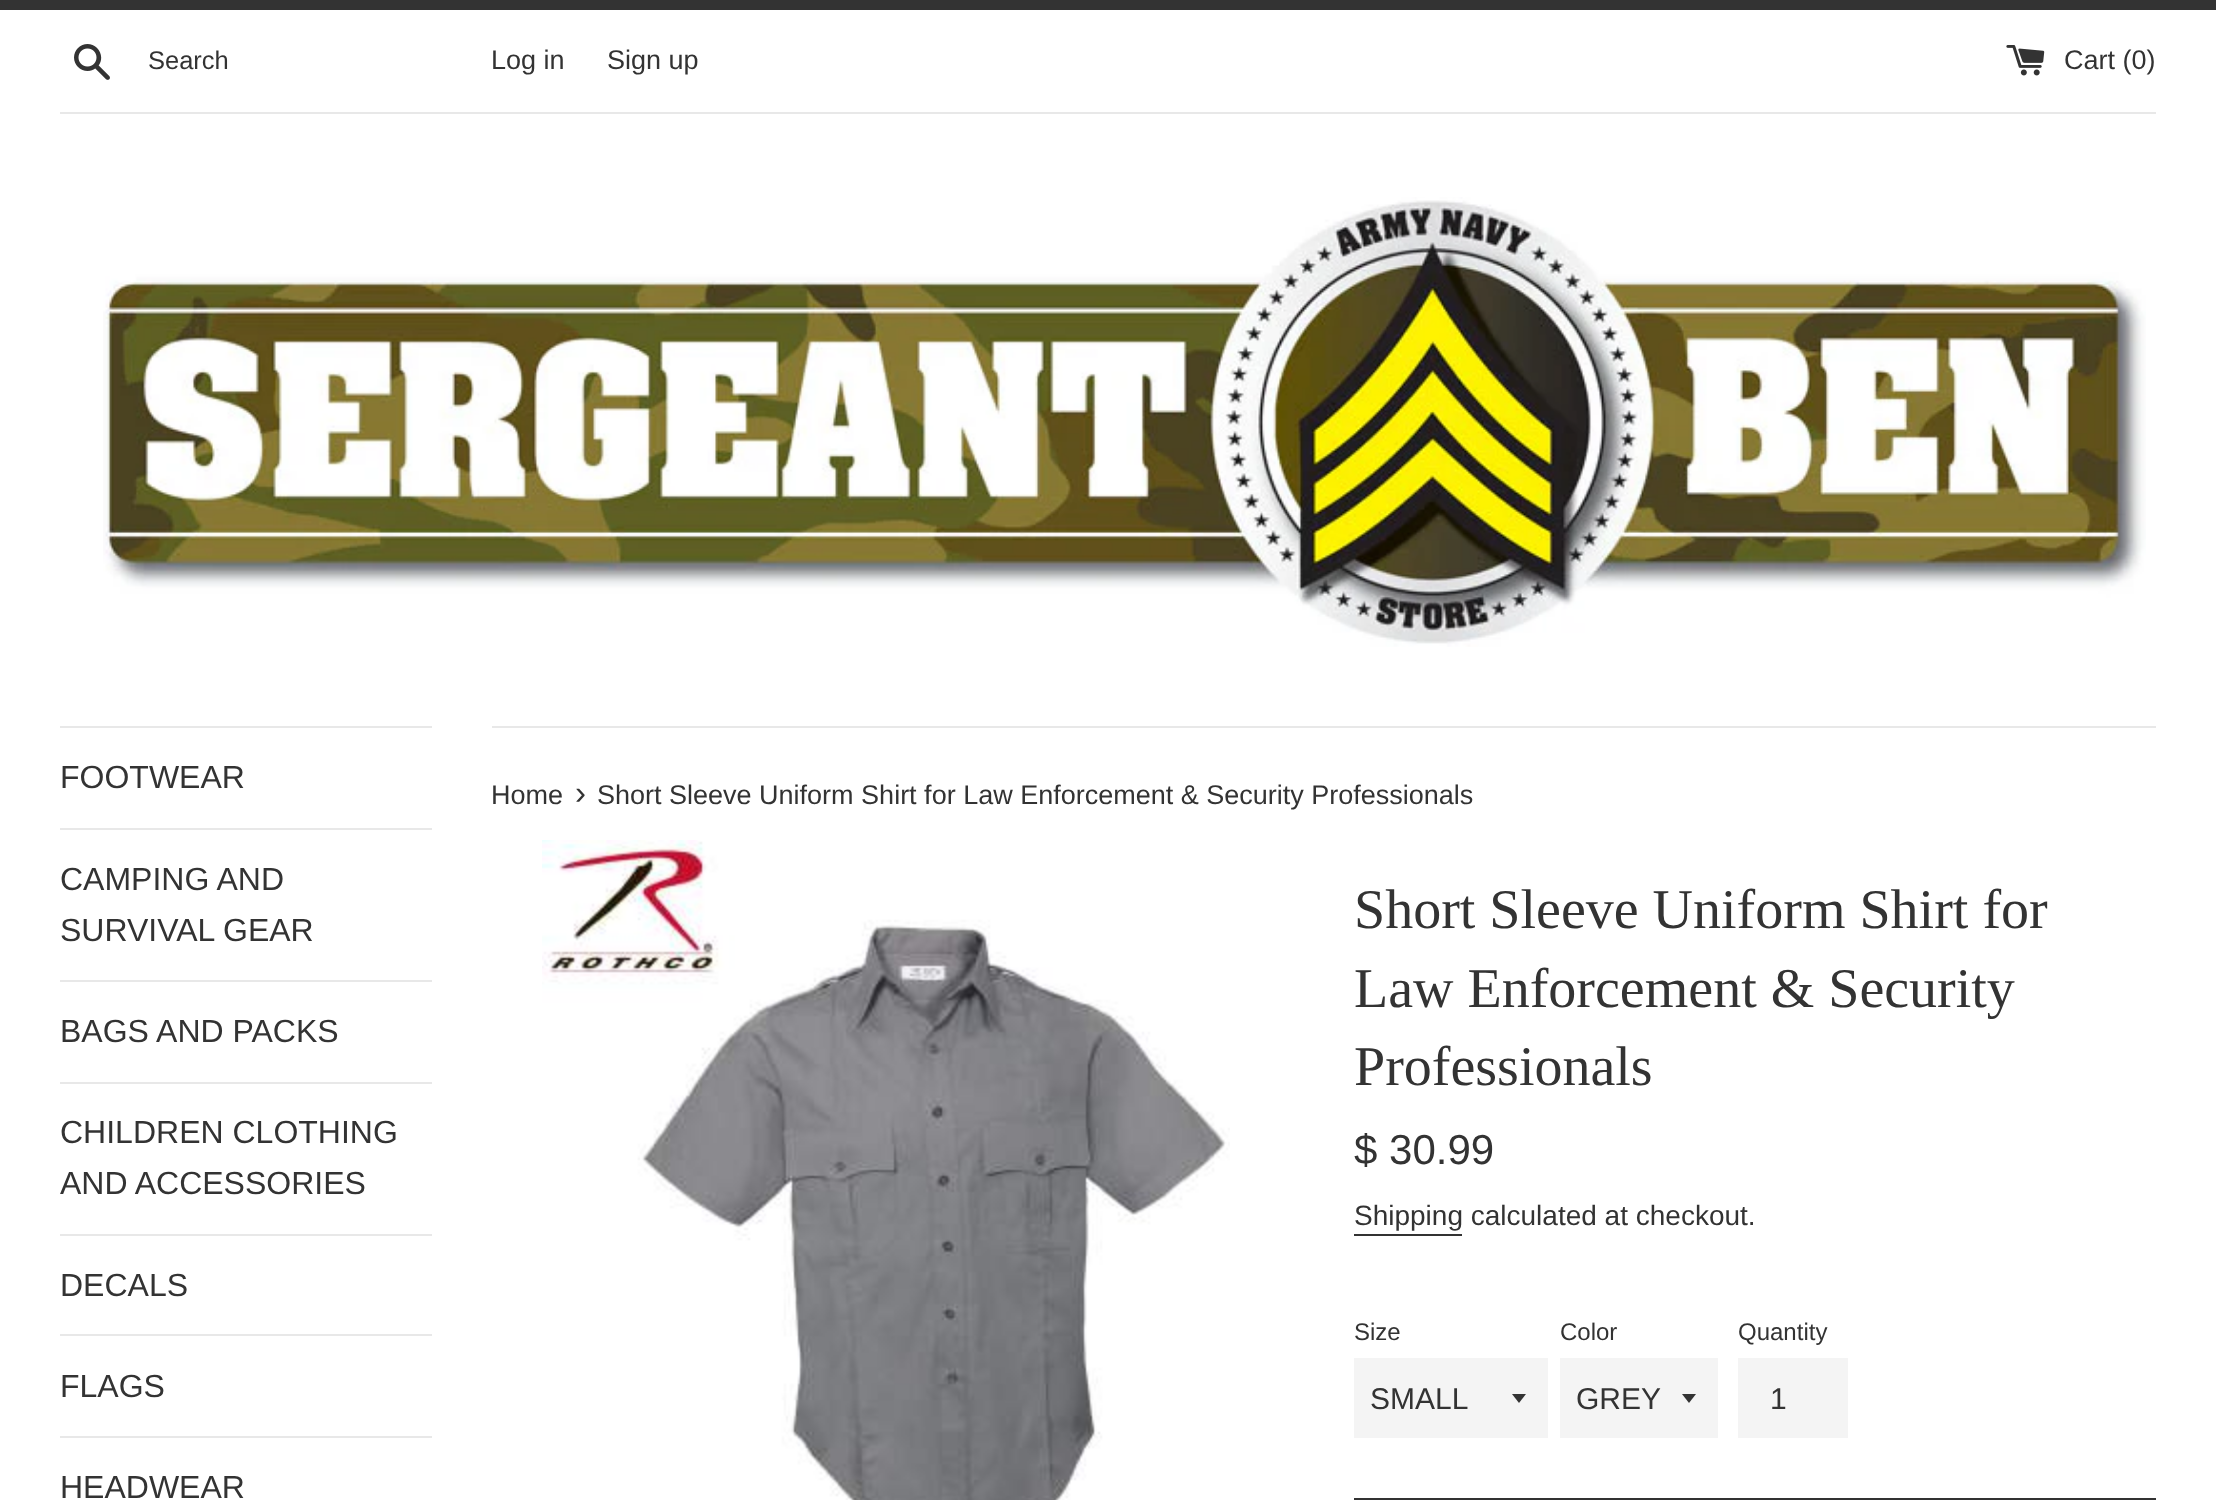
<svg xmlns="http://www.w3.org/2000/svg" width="2216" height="1500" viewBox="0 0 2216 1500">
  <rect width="100%" height="100%" fill="#ffffff"/>
  <rect x="0" y="0" width="2216" height="10" fill="#333333"/>
  <image x="74" y="44" width="36" height="36" href="img1.png"/>
  <text x="148" y="69" font-family="Liberation Sans" font-size="25.5" fill="#333333">Search</text>
  <text x="491" y="69" font-family="Liberation Sans" font-size="27" fill="#333333">Log in</text>
  <text x="607" y="69" font-family="Liberation Sans" font-size="27" fill="#333333">Sign up</text>
  <image x="2006" y="45" width="39" height="31" href="img2.png"/>
  <text x="2064" y="69" font-family="Liberation Sans" font-size="27" fill="#333333">Cart (0)</text>
  <rect x="60" y="112" width="2096" height="2" fill="#e8e8e8"/>
  <image x="103" y="197" width="2043" height="450" href="img3.png"/>
  <rect x="60" y="726" width="372" height="2" fill="#e8e8e8"/>
  <rect x="60" y="828" width="372" height="2" fill="#e8e8e8"/>
  <text x="60" y="788" font-family="Liberation Sans" font-size="32" fill="#333333">FOOTWEAR</text>
  <rect x="60" y="980" width="372" height="2" fill="#e8e8e8"/>
  <text x="60" y="890" font-family="Liberation Sans" font-size="32" fill="#333333">CAMPING AND</text>
  <text x="60" y="941" font-family="Liberation Sans" font-size="32" fill="#333333">SURVIVAL GEAR</text>
  <rect x="60" y="1082" width="372" height="2" fill="#e8e8e8"/>
  <text x="60" y="1042" font-family="Liberation Sans" font-size="32" fill="#333333">BAGS AND PACKS</text>
  <rect x="60" y="1234" width="372" height="2" fill="#e8e8e8"/>
  <text x="60" y="1143" font-family="Liberation Sans" font-size="32" fill="#333333">CHILDREN CLOTHING</text>
  <text x="60" y="1194" font-family="Liberation Sans" font-size="32" fill="#333333">AND ACCESSORIES</text>
  <rect x="60" y="1334" width="372" height="2" fill="#e8e8e8"/>
  <text x="60" y="1296" font-family="Liberation Sans" font-size="32" fill="#333333">DECALS</text>
  <rect x="60" y="1436" width="372" height="2" fill="#e8e8e8"/>
  <text x="60" y="1397" font-family="Liberation Sans" font-size="32" fill="#333333">FLAGS</text>
  <text x="60" y="1498" font-family="Liberation Sans" font-size="32" fill="#333333">HEADWEAR</text>
  <rect x="492" y="726" width="1664" height="2" fill="#e8e8e8"/>
  <text x="491" y="804" font-family="Liberation Sans" font-size="27" fill="#333333">Home</text>
  <text x="575" y="804" font-family="Liberation Sans" font-size="33" fill="#333333">›</text>
  <text x="597" y="804" font-family="Liberation Sans" font-size="27" fill="#333333">Short Sleeve Uniform Shirt for Law Enforcement &amp; Security Professionals</text>
  <image x="542" y="840" width="688" height="660" href="img4.png"/>
  <text x="1354" y="928" font-family="Liberation Serif" font-size="56" fill="#333333">Short Sleeve Uniform Shirt for</text>
  <text x="1354" y="1007" font-family="Liberation Serif" font-size="56" fill="#333333">Law Enforcement &amp; Security</text>
  <text x="1354" y="1085" font-family="Liberation Serif" font-size="56" fill="#333333">Professionals</text>
  <text x="1354" y="1164" font-family="Liberation Sans" font-size="42" fill="#333333">$ 30.99</text>
  <text x="1354" y="1225" font-family="Liberation Sans" font-size="28" fill="#333333">Shipping calculated at checkout.</text>
  <rect x="1354" y="1234" width="108" height="2" fill="#333333"/>
  <text x="1354" y="1340" font-family="Liberation Sans" font-size="24" fill="#333333">Size</text>
  <rect x="1354" y="1358" width="194" height="80" fill="#f4f4f4"/>
  <path d="M1512 1394L1519 1403L1526 1394Z" fill="#333333"/>
  <text x="1370" y="1409" font-family="Liberation Sans" font-size="30" fill="#333333">SMALL</text>
  <text x="1560" y="1340" font-family="Liberation Sans" font-size="24" fill="#333333">Color</text>
  <rect x="1560" y="1358" width="158" height="80" fill="#f4f4f4"/>
  <path d="M1682 1394L1689 1403L1696 1394Z" fill="#333333"/>
  <text x="1576" y="1409" font-family="Liberation Sans" font-size="30" fill="#333333">GREY</text>
  <text x="1738" y="1340" font-family="Liberation Sans" font-size="24" fill="#333333">Quantity</text>
  <rect x="1738" y="1358" width="110" height="80" fill="#f4f4f4"/>
  <text x="1770" y="1409" font-family="Liberation Sans" font-size="30" fill="#333333">1</text>
  <rect x="1356" y="1500" width="798" height="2" fill="none" stroke="#333333" stroke-width="4"/>
</svg>
